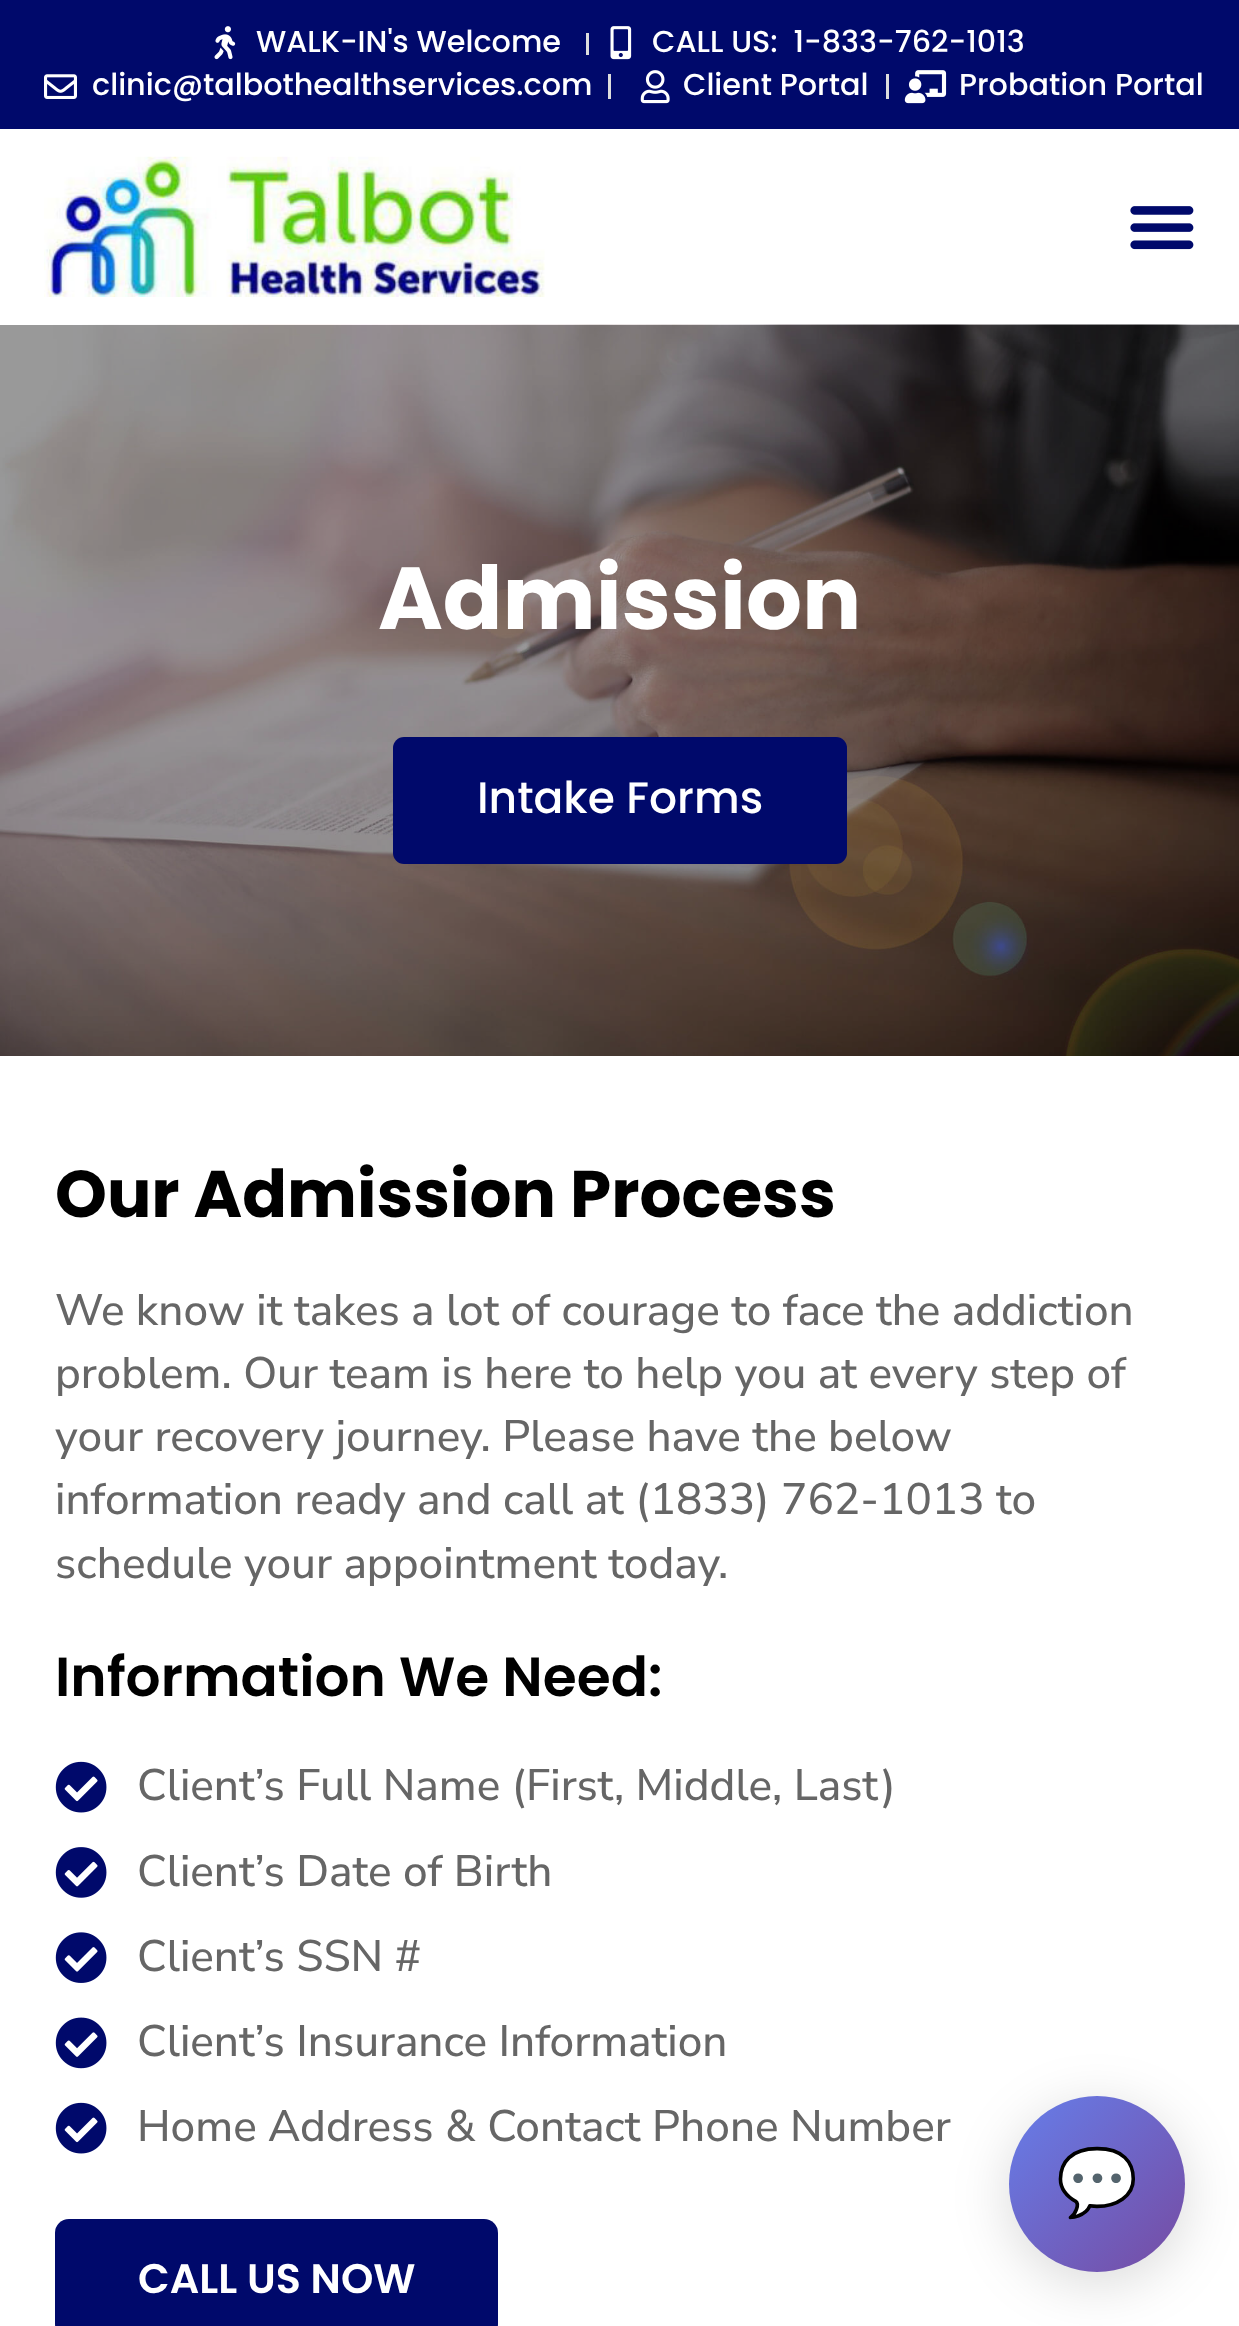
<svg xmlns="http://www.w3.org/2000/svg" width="1239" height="2326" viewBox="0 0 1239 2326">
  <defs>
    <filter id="blur1" x="-50%" y="-200%" width="200%" height="500%"><feGaussianBlur stdDeviation="27.5"/></filter>
    <linearGradient id="g1" gradientUnits="userSpaceOnUse" x1="1009" y1="2096" x2="1185" y2="2272"><stop offset="0" stop-color="#667eea"/><stop offset="1" stop-color="#764ba2"/></linearGradient>
  </defs>
  <rect width="100%" height="100%" fill="#ffffff"/>
  <rect x="0" y="0" width="1239" height="129" fill="#00096b"/>
  <image x="214" y="26" width="22" height="34" href="img1.png"/>
  <text x="256" y="52" font-family="Poppins" font-size="30.25" font-weight="500" fill="#ffffff">WALK-IN's Welcome</text>
  <rect x="586" y="33" width="3" height="22" fill="#dddddd"/>
  <image x="610" y="26" width="22" height="34" href="img2.png"/>
  <text x="652" y="52" font-family="Poppins" font-size="30.25" font-weight="500" fill="#ffffff" xml:space="preserve">CALL US:  1-833-762-1013</text>
  <image x="44" y="74" width="33" height="25" href="img3.png"/>
  <text x="92" y="95" font-family="Poppins" font-size="30.25" font-weight="500" fill="#ffffff">clinic@talbothealthservices.com</text>
  <rect x="608" y="74" width="3" height="25" fill="#dddddd"/>
  <image x="640" y="70" width="30" height="34" href="img4.png"/>
  <text x="683" y="95" font-family="Poppins" font-size="30.25" font-weight="500" fill="#ffffff">Client Portal</text>
  <rect x="886" y="74" width="3" height="25" fill="#dddddd"/>
  <image x="904" y="70" width="43" height="34" href="img5.png"/>
  <text x="959" y="95" font-family="Poppins" font-size="30.25" font-weight="500" fill="#ffffff">Probation Portal</text>
  <image x="44" y="156" width="501" height="141" href="img6.png"/>
  <image x="1130" y="206" width="64" height="44" href="img7.png"/>
  <image x="0" y="324" width="1239" height="732" href="img8.png"/>
  <text x="378" y="629" font-family="Poppins" font-size="88" font-weight="bold" fill="#ffffff">Admission</text>
  <rect x="393" y="737" width="454" height="127" rx="11" fill="#00096b"/>
  <text x="477" y="813" font-family="Poppins" font-size="44" font-weight="500" fill="#ffffff">Intake Forms</text>
  <text x="55" y="1217" font-family="Poppins" font-size="66" font-weight="bold" fill="#000000">Our Admission Process</text>
  <text x="55" y="1325" font-family="Nunito Sans" font-size="44" font-weight="500" fill="#666666">We know it takes a lot of courage to face the addiction</text>
  <text x="55" y="1388" font-family="Nunito Sans" font-size="44" font-weight="500" fill="#666666">problem. Our team is here to help you at every step of</text>
  <text x="55" y="1451" font-family="Nunito Sans" font-size="44" font-weight="500" fill="#666666">your recovery journey. Please have the below</text>
  <text x="55" y="1514" font-family="Nunito Sans" font-size="44" font-weight="500" fill="#666666">information ready and call at (1833) 762-1013 to</text>
  <text x="55" y="1578" font-family="Nunito Sans" font-size="44" font-weight="500" fill="#666666">schedule your appointment today.</text>
  <text x="55" y="1696" font-family="Poppins" font-size="55" font-weight="600" fill="#000000">Information We Need:</text>
  <image x="55" y="1761" width="52" height="52" href="img9.png"/>
  <text x="137" y="1800" font-family="Nunito Sans" font-size="44" font-weight="500" fill="#666666">Client’s Full Name (First, Middle, Last)</text>
  <image x="55" y="1847" width="52" height="51" href="img10.png"/>
  <text x="137" y="1886" font-family="Nunito Sans" font-size="44" font-weight="500" fill="#666666">Client’s Date of Birth</text>
  <image x="55" y="1932" width="52" height="51" href="img11.png"/>
  <text x="137" y="1971" font-family="Nunito Sans" font-size="44" font-weight="500" fill="#666666">Client’s SSN #</text>
  <image x="55" y="2017" width="52" height="52" href="img12.png"/>
  <text x="137" y="2056" font-family="Nunito Sans" font-size="44" font-weight="500" fill="#666666">Client’s Insurance Information</text>
  <image x="55" y="2102" width="52" height="52" href="img9.png"/>
  <text x="137" y="2141" font-family="Nunito Sans" font-size="44" font-weight="500" fill="#666666">Home Address &amp; Contact Phone Number</text>
  <rect x="55" y="2219" width="443" height="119" rx="14" fill="#00096b"/>
  <text x="138" y="2293" font-family="Poppins" font-size="41.25" font-weight="600" fill="#ffffff">CALL US NOW</text>
  <rect x="1009" y="2107" width="176" height="176" rx="88" fill="#000000" fill-opacity="0.15" filter="url(#blur1)"/>
  <circle cx="1097" cy="2184" r="88" fill="url(#g1)"/>
  <text x="1056" y="2205" font-family="Noto Color Emoji" font-size="66" fill="#ffffff">💬</text>
</svg>
